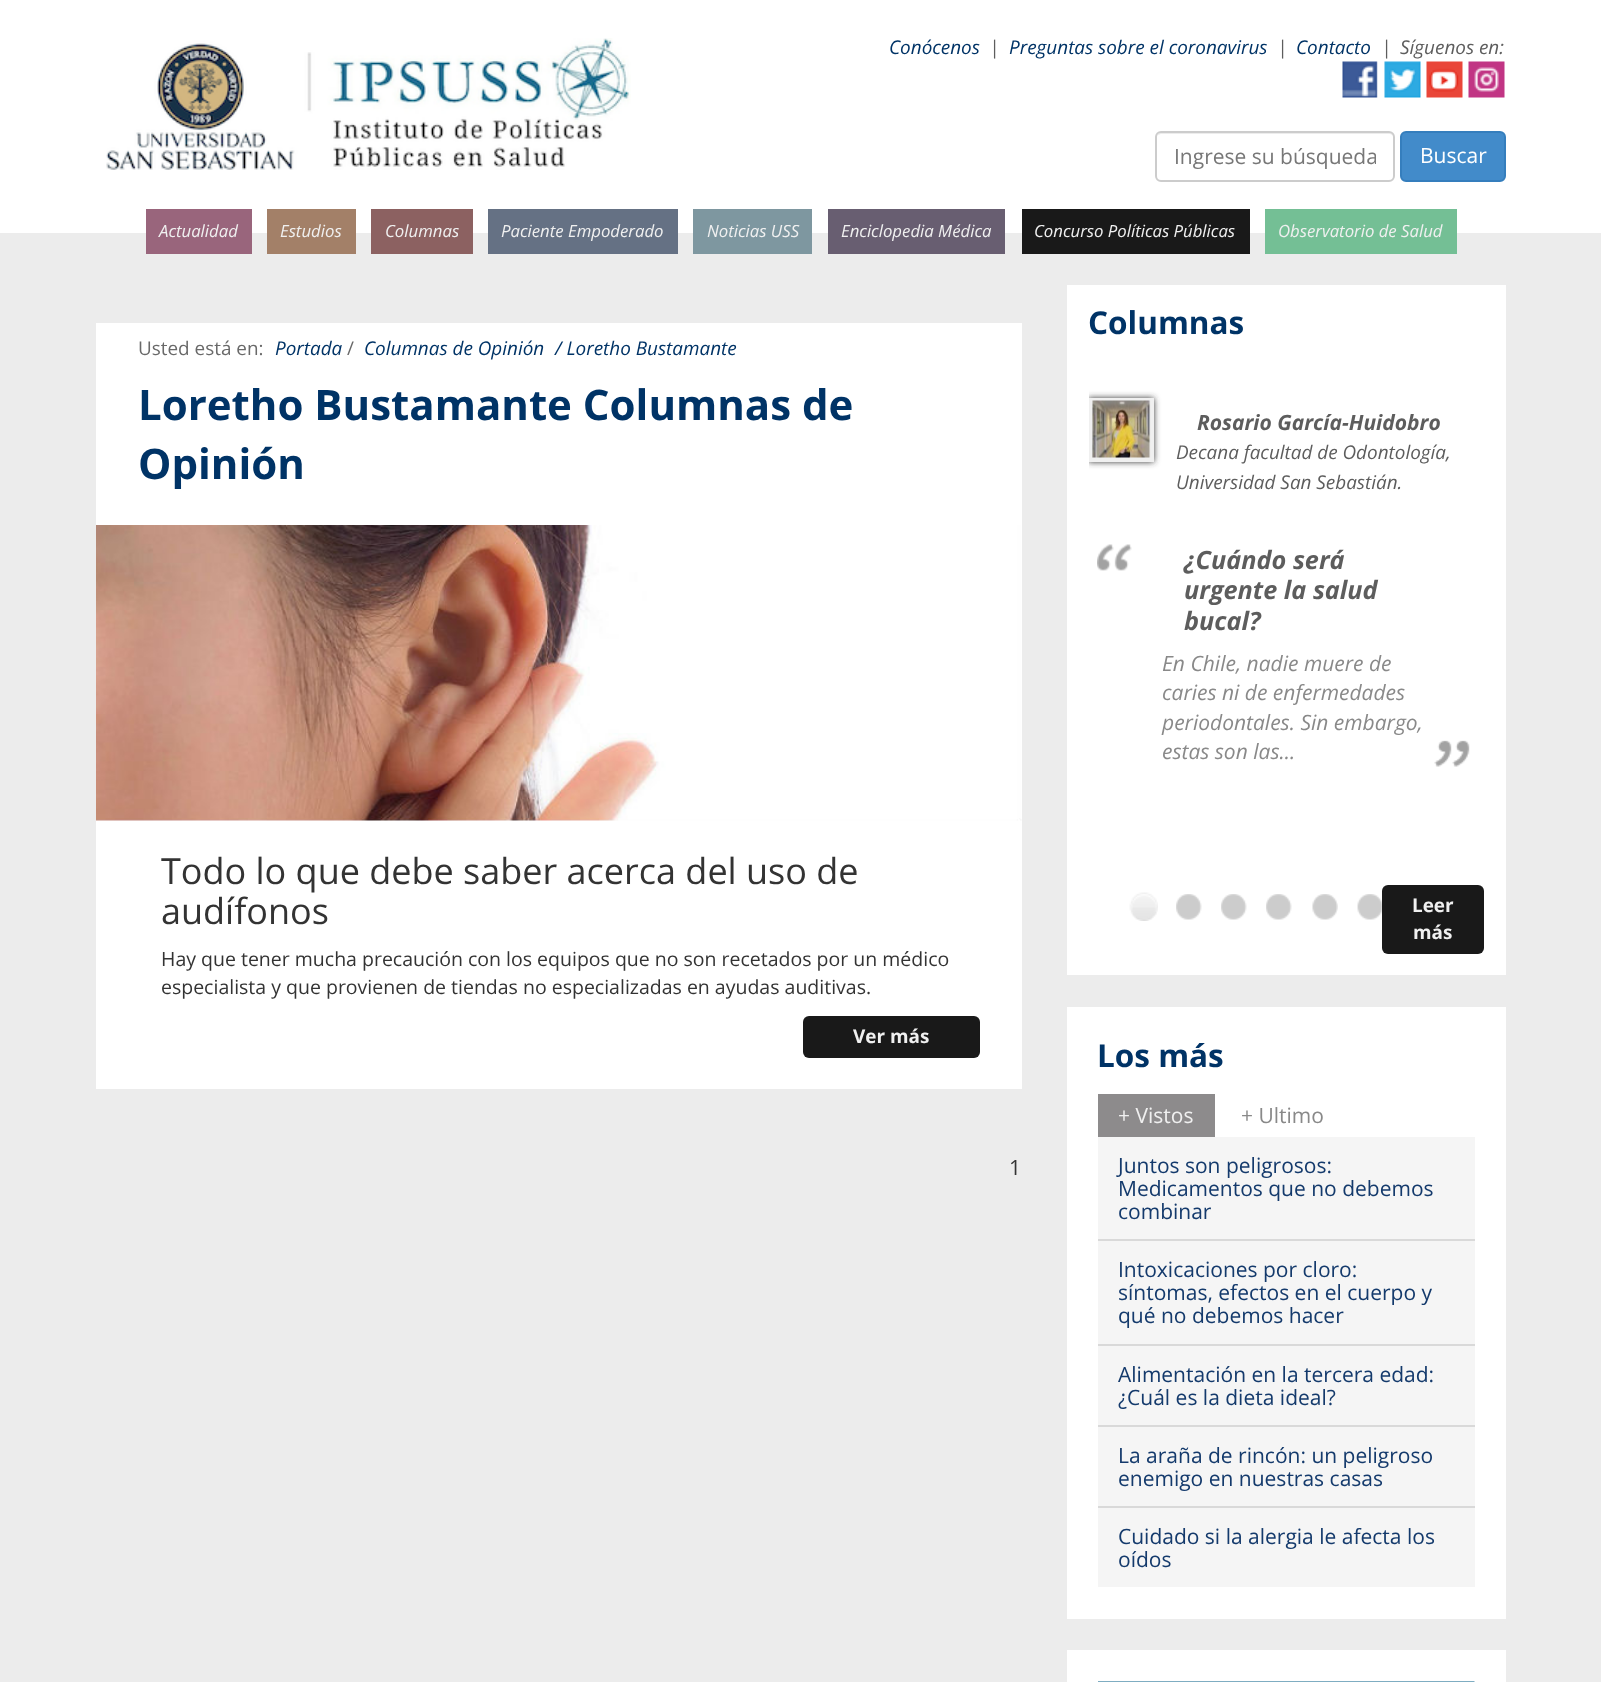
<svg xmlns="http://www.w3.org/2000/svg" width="1601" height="1682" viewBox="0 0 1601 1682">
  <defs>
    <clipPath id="clip1"><rect x="1175" y="141" width="201" height="29"/></clipPath>
    <clipPath id="clip2"><rect x="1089" y="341" width="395" height="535"/></clipPath>
    <filter id="blur1" x="-50%" y="-200%" width="200%" height="500%"><feGaussianBlur stdDeviation="3"/></filter>
  </defs>
  <rect width="100%" height="100%" fill="#ececec"/>
  <rect x="0" y="0" width="1601" height="233" fill="#ffffff"/>
  <image x="106" y="38" width="525" height="132" href="img1.png"/>
  <text x="889" y="54" font-family="Open Sans" font-size="18.9" font-style="italic" fill="#003366">Conócenos</text>
  <text x="989" y="54" font-family="Open Sans" font-size="18.9" font-style="italic" fill="#5d5d5d">|</text>
  <text x="1009" y="54" font-family="Open Sans" font-size="18.9" font-style="italic" fill="#003366">Preguntas sobre el coronavirus</text>
  <text x="1277" y="54" font-family="Open Sans" font-size="18.9" font-style="italic" fill="#5d5d5d">|</text>
  <text x="1296" y="54" font-family="Open Sans" font-size="18.9" font-style="italic" fill="#003366">Contacto</text>
  <text x="1381" y="54" font-family="Open Sans" font-size="18.9" font-style="italic" fill="#5d5d5d">|</text>
  <text x="1400" y="54" font-family="Open Sans" font-size="18.9" font-style="italic" fill="#5d5d5d">Síguenos en:</text>
  <image x="1342" y="61" width="36" height="37" href="img2.png"/>
  <image x="1384" y="61" width="37" height="37" href="img3.png"/>
  <image x="1426" y="61" width="37" height="37" href="img4.png"/>
  <image x="1468" y="61" width="37" height="37" href="img5.png"/>
  <path d="M1161 134H1389C1391 134 1394 136 1394 138V137C1394 134 1392 132 1389 132H1162C1160 132 1158 134 1157 136C1158 135 1160 134 1161 134Z" fill="#ececec"/>
  <rect x="1156" y="132" width="238" height="49" rx="5" fill="none" stroke="#cccccc" stroke-width="2"/>
  <g clip-path="url(#clip1)">
    <text x="1174" y="164" font-family="Open Sans" font-size="21" fill="#777777">Ingrese su búsqueda</text>
  </g>
  <rect x="1401" y="132" width="104" height="49" rx="5" fill="#428bca" stroke="#357ebd" stroke-width="2"/>
  <text x="1420" y="163" font-family="Open Sans" font-size="21" fill="#ffffff">Buscar</text>
  <rect x="146" y="209" width="106" height="45" fill="#99657c"/>
  <text x="159" y="237" font-family="Open Sans" font-size="16.75" font-style="italic" fill="#f0f0f0">Actualidad</text>
  <rect x="267" y="209" width="89" height="45" fill="#a38068"/>
  <text x="280" y="237" font-family="Open Sans" font-size="16.75" font-style="italic" fill="#f0f0f0">Estudios</text>
  <rect x="371" y="209" width="102" height="45" fill="#8c6161"/>
  <text x="385" y="237" font-family="Open Sans" font-size="16.75" font-style="italic" fill="#f0f0f0">Columnas</text>
  <rect x="488" y="209" width="190" height="45" fill="#657184"/>
  <text x="501" y="237" font-family="Open Sans" font-size="16.75" font-style="italic" fill="#f0f0f0">Paciente Empoderado</text>
  <rect x="693" y="209" width="119" height="45" fill="#7e97a0"/>
  <text x="707" y="237" font-family="Open Sans" font-size="16.75" font-style="italic" fill="#f0f0f0">Noticias USS</text>
  <rect x="828" y="209" width="177" height="45" fill="#685e71"/>
  <text x="841" y="237" font-family="Open Sans" font-size="16.75" font-style="italic" fill="#f0f0f0">Enciclopedia Médica</text>
  <rect x="1022" y="209" width="228" height="45" fill="#191919"/>
  <text x="1034" y="237" font-family="Open Sans" font-size="16.75" font-style="italic" fill="#f0f0f0">Concurso Políticas Públicas</text>
  <rect x="1265" y="209" width="192" height="45" fill="#74bf95"/>
  <text x="1278" y="237" font-family="Open Sans" font-size="16.75" font-style="italic" fill="#f0f0f0">Observatorio de Salud</text>
  <rect x="96" y="323" width="926" height="766" fill="#ffffff"/>
  <text x="138" y="355" font-family="Open Sans" font-size="18.9" fill="#696969">Usted está en:</text>
  <text x="275" y="355" font-family="Open Sans" font-size="18.9" font-style="italic" fill="#003366">Portada</text>
  <text x="347" y="355" font-family="Open Sans" font-size="18.9" fill="#696969">/</text>
  <text x="364" y="355" font-family="Open Sans" font-size="18.9" font-style="italic" fill="#003366">Columnas de Opinión</text>
  <text x="555" y="355" font-family="Open Sans" font-size="18.9" font-style="italic" fill="#003366">/ Loretho Bustamante</text>
  <text x="138" y="420" font-family="Open Sans" font-size="42" font-weight="bold" fill="#003366">Loretho Bustamante Columnas de</text>
  <text x="138" y="479" font-family="Open Sans" font-size="42" font-weight="bold" fill="#003366">Opinión</text>
  <image x="96" y="525" width="926" height="296" href="img6.png"/>
  <text x="161" y="884" font-family="Open Sans" font-size="36" fill="#333333">Todo lo que debe saber acerca del uso de</text>
  <text x="161" y="924" font-family="Open Sans" font-size="36" fill="#333333">audífonos</text>
  <text x="161" y="966" font-family="Open Sans" font-size="19.5" fill="#333333">Hay que tener mucha precaución con los equipos que no son recetados por un médico</text>
  <text x="161" y="994" font-family="Open Sans" font-size="19.5" fill="#333333">especialista y que provienen de tiendas no especializadas en ayudas auditivas.</text>
  <rect x="803" y="1016" width="177" height="42" rx="6" fill="#191919"/>
  <text x="853" y="1043" font-family="Open Sans" font-size="18.9" font-weight="bold" fill="#f0f0f0">Ver más</text>
  <text x="1009" y="1175" font-family="Open Sans" font-size="21" fill="#333333">1</text>
  <rect x="1067" y="285" width="439" height="690" fill="#ffffff"/>
  <text x="1088" y="334" font-family="Open Sans" font-size="31.5" font-weight="bold" fill="#003366">Columnas</text>
  <g clip-path="url(#clip2)">
    <rect x="1088" y="398" width="66" height="64" fill="#393939" filter="url(#blur1)"/>
  </g>
  <rect x="1089" y="398" width="65" height="64" fill="#f0f0f0"/>
  <image x="1092" y="400" width="59" height="58" href="img7.png"/>
  <text x="1197" y="430" font-family="Open Sans" font-size="21" font-weight="bold" font-style="italic" fill="#5d5d5d">Rosario García-Huidobro</text>
  <text x="1176" y="459" font-family="Open Sans" font-size="18.9" font-style="italic" fill="#5d5d5d">Decana facultad de Odontología,</text>
  <text x="1176" y="489" font-family="Open Sans" font-size="18.9" font-style="italic" fill="#5d5d5d">Universidad San Sebastián.</text>
  <image x="1097" y="544" width="35" height="27" href="img8.png"/>
  <text x="1184" y="569" font-family="Open Sans" font-size="25.25" font-weight="bold" font-style="italic" fill="#5d5d5d">¿Cuándo será</text>
  <text x="1184" y="599" font-family="Open Sans" font-size="25.25" font-weight="bold" font-style="italic" fill="#5d5d5d">urgente la salud</text>
  <text x="1184" y="630" font-family="Open Sans" font-size="25.25" font-weight="bold" font-style="italic" fill="#5d5d5d">bucal?</text>
  <text x="1162" y="671" font-family="Open Sans" font-size="21" font-style="italic" fill="#898989">En Chile, nadie muere de</text>
  <text x="1162" y="700" font-family="Open Sans" font-size="21" font-style="italic" fill="#898989">caries ni de enfermedades</text>
  <text x="1162" y="730" font-family="Open Sans" font-size="21" font-style="italic" fill="#898989">periodontales. Sin embargo,</text>
  <text x="1162" y="759" font-family="Open Sans" font-size="21" font-style="italic" fill="#898989">estas son las...</text>
  <image x="1434" y="740" width="36" height="27" href="img9.png"/>
  <image x="1129" y="892" width="29" height="29" href="img10.png"/>
  <image x="1176" y="894" width="26" height="26" href="img11.png"/>
  <image x="1221" y="894" width="26" height="26" href="img12.png"/>
  <image x="1266" y="894" width="26" height="26" href="img12.png"/>
  <image x="1312" y="894" width="26" height="26" href="img13.png"/>
  <image x="1357" y="894" width="25" height="26" href="img14.png"/>
  <rect x="1382" y="885" width="102" height="69" rx="6" fill="#191919"/>
  <text x="1412" y="912" font-family="Open Sans" font-size="18.9" font-weight="bold" fill="#f0f0f0">Leer</text>
  <text x="1413" y="939" font-family="Open Sans" font-size="18.9" font-weight="bold" fill="#f0f0f0">más</text>
  <rect x="1067" y="1007" width="439" height="612" fill="#ffffff"/>
  <text x="1097" y="1067" font-family="Open Sans" font-size="31.5" font-weight="bold" fill="#003366">Los más</text>
  <rect x="1098" y="1094" width="117" height="43" fill="#8d8b8c"/>
  <text x="1118" y="1123" font-family="Open Sans" font-size="21" fill="#f0f0f0">+ Vistos</text>
  <text x="1241" y="1123" font-family="Open Sans" font-size="21" fill="#898989">+ Ultimo</text>
  <rect x="1098" y="1137" width="377" height="102" fill="#f5f5f5"/>
  <text x="1118" y="1173" font-family="Open Sans" font-size="21" fill="#143a6c">Juntos son peligrosos:</text>
  <text x="1118" y="1196" font-family="Open Sans" font-size="21" fill="#143a6c">Medicamentos que no debemos</text>
  <text x="1118" y="1219" font-family="Open Sans" font-size="21" fill="#143a6c">combinar</text>
  <rect x="1098" y="1239" width="377" height="2" fill="#d9d9d9"/>
  <rect x="1098" y="1241" width="377" height="103" fill="#f5f5f5"/>
  <text x="1118" y="1277" font-family="Open Sans" font-size="21" fill="#143a6c">Intoxicaciones por cloro:</text>
  <text x="1118" y="1300" font-family="Open Sans" font-size="21" fill="#143a6c">síntomas, efectos en el cuerpo y</text>
  <text x="1118" y="1323" font-family="Open Sans" font-size="21" fill="#143a6c">qué no debemos hacer</text>
  <rect x="1098" y="1344" width="377" height="2" fill="#d9d9d9"/>
  <rect x="1098" y="1346" width="377" height="79" fill="#f5f5f5"/>
  <text x="1118" y="1382" font-family="Open Sans" font-size="21" fill="#143a6c">Alimentación en la tercera edad:</text>
  <text x="1118" y="1405" font-family="Open Sans" font-size="21" fill="#143a6c">¿Cuál es la dieta ideal?</text>
  <rect x="1098" y="1425" width="377" height="2" fill="#d9d9d9"/>
  <rect x="1098" y="1427" width="377" height="79" fill="#f5f5f5"/>
  <text x="1118" y="1463" font-family="Open Sans" font-size="21" fill="#143a6c">La araña de rincón: un peligroso</text>
  <text x="1118" y="1486" font-family="Open Sans" font-size="21" fill="#143a6c">enemigo en nuestras casas</text>
  <rect x="1098" y="1506" width="377" height="2" fill="#d9d9d9"/>
  <rect x="1098" y="1508" width="377" height="79" fill="#f5f5f5"/>
  <text x="1118" y="1544" font-family="Open Sans" font-size="21" fill="#143a6c">Cuidado si la alergia le afecta los</text>
  <text x="1118" y="1567" font-family="Open Sans" font-size="21" fill="#143a6c">oídos</text>
  <rect x="1067" y="1650" width="439" height="32" fill="#ffffff"/>
  <image x="1098" y="1681" width="377" height="1" href="img15.png"/>
</svg>
